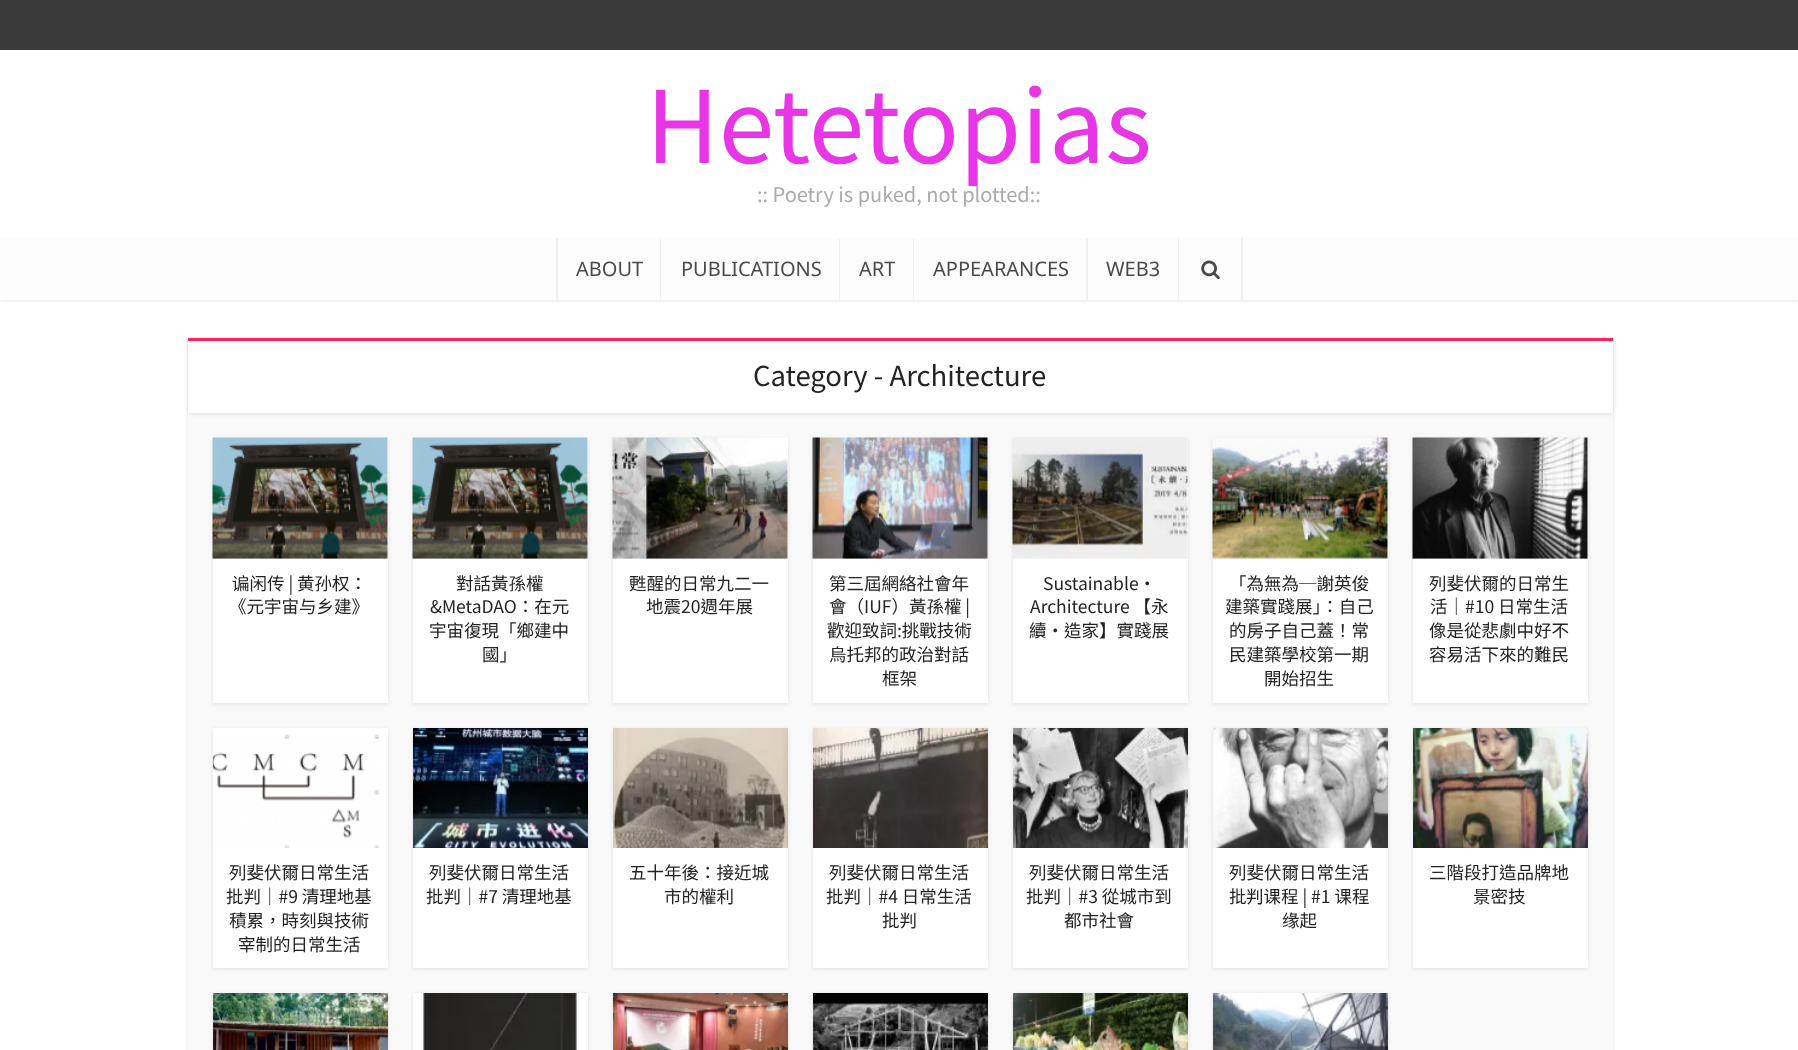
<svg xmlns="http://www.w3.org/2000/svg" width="1798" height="1050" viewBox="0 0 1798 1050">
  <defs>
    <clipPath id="clip1"><rect x="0" y="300" width="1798" height="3"/></clipPath>
    <filter id="blur1" x="-50%" y="-200%" width="200%" height="500%"><feGaussianBlur stdDeviation="2"/></filter>
  </defs>
  <rect width="100%" height="100%" fill="#ffffff"/>
  <g clip-path="url(#clip1)">
    <rect x="0" y="1" width="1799" height="300" fill="#000000" fill-opacity="0.1" filter="url(#blur1)"/>
  </g>
  <rect x="0" y="0" width="1798" height="50" fill="#3a3a3a"/>
  <text x="646" y="163" font-family="Noto Sans TC" font-size="100" font-weight="100" fill="#e835e5">Hetetopias</text>
  <text x="757" y="202" font-family="Noto Sans TC" font-size="20" font-weight="100" fill="#aaaaaa">:: Poetry is puked, not plotted::</text>
  <rect x="0" y="238" width="1798" height="62" fill="#fcfcfc"/>
  <rect x="556" y="238" width="2" height="62" fill="#efefef"/>
  <text x="576" y="276" font-family="Noto Sans" font-size="20" fill="#4a4a4a">ABOUT</text>
  <rect x="660" y="238" width="1" height="62" fill="#efefef"/>
  <text x="681" y="276" font-family="Noto Sans" font-size="20" fill="#4a4a4a">PUBLICATIONS</text>
  <rect x="839" y="238" width="1" height="62" fill="#efefef"/>
  <text x="859" y="276" font-family="Noto Sans" font-size="20" fill="#4a4a4a">ART</text>
  <rect x="913" y="238" width="1" height="62" fill="#efefef"/>
  <text x="933" y="276" font-family="Noto Sans" font-size="20" fill="#4a4a4a">APPEARANCES</text>
  <rect x="1086" y="238" width="2" height="62" fill="#efefef"/>
  <text x="1106" y="276" font-family="Noto Sans" font-size="20" fill="#4a4a4a">WEB3</text>
  <rect x="1241" y="238" width="2" height="62" fill="#efefef"/>
  <rect x="1178" y="238" width="1" height="62" fill="#efefef"/>
  <image x="1201" y="260" width="19" height="20" href="img1.png"/>
  <rect x="188" y="339" width="1425" height="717" fill="#000000" fill-opacity="0.1" filter="url(#blur1)"/>
  <rect x="188" y="413" width="1425" height="637" fill="#f9f9f9"/>
  <rect x="188" y="339" width="1425" height="75" fill="#000000" fill-opacity="0.1" filter="url(#blur1)"/>
  <rect x="188" y="341" width="1425" height="72" fill="#ffffff"/>
  <rect x="188" y="338" width="1425" height="3" fill="#f7255d"/>
  <text x="753" y="386" font-family="Noto Sans TC" font-size="27.5" font-weight="100" fill="#232323">Category - Architecture</text>
  <rect x="213" y="439" width="175" height="265" fill="#000000" fill-opacity="0.1" filter="url(#blur1)"/>
  <rect x="213" y="438" width="175" height="265" fill="#ffffff"/>
  <image x="212" y="437" width="176" height="122" href="img2.png"/>
  <text x="232" y="590" font-family="Noto Sans CJK TC" font-size="17.5" fill="#232323">谝闲传 | 黄孙权：</text>
  <text x="229" y="613" font-family="Noto Sans CJK TC" font-size="17.5" fill="#232323">《元宇宙与乡建》</text>
  <rect x="413" y="439" width="175" height="265" fill="#000000" fill-opacity="0.1" filter="url(#blur1)"/>
  <rect x="413" y="438" width="175" height="265" fill="#ffffff"/>
  <image x="412" y="437" width="176" height="122" href="img2.png"/>
  <text x="456" y="590" font-family="Noto Sans TC" font-size="17.5" font-weight="100" fill="#232323">對話黃孫權</text>
  <text x="430" y="613" font-family="Noto Sans TC" font-size="17.5" font-weight="100" fill="#232323">&amp;MetaDAO：在元</text>
  <text x="429" y="637" font-family="Noto Sans TC" font-size="17.5" font-weight="100" fill="#232323">宇宙復現「鄉建中</text>
  <text x="482" y="661" font-family="Noto Sans TC" font-size="17.5" font-weight="100" fill="#232323">國」</text>
  <rect x="613" y="439" width="175" height="265" fill="#000000" fill-opacity="0.1" filter="url(#blur1)"/>
  <rect x="613" y="438" width="175" height="265" fill="#ffffff"/>
  <image x="612" y="437" width="176" height="122" href="img3.png"/>
  <text x="629" y="590" font-family="Noto Sans TC" font-size="17.5" font-weight="100" fill="#232323">甦醒的日常九二一</text>
  <text x="646" y="613" font-family="Noto Sans TC" font-size="17.5" font-weight="100" fill="#232323">地震20週年展</text>
  <rect x="813" y="439" width="175" height="265" fill="#000000" fill-opacity="0.1" filter="url(#blur1)"/>
  <rect x="813" y="438" width="175" height="265" fill="#ffffff"/>
  <image x="812" y="437" width="176" height="122" href="img4.png"/>
  <text x="829" y="590" font-family="Noto Sans TC" font-size="17.5" font-weight="100" fill="#232323">第三屆網絡社會年</text>
  <text x="829" y="613" font-family="Noto Sans TC" font-size="17.5" font-weight="100" fill="#232323">會（IUF）黃孫權 |</text>
  <text x="827" y="637" font-family="Noto Sans TC" font-size="17.5" font-weight="100" fill="#232323">歡迎致詞:挑戰技術</text>
  <text x="829" y="661" font-family="Noto Sans TC" font-size="17.5" font-weight="100" fill="#232323">烏托邦的政治對話</text>
  <text x="882" y="685" font-family="Noto Sans TC" font-size="17.5" font-weight="100" fill="#232323">框架</text>
  <rect x="1013" y="439" width="175" height="265" fill="#000000" fill-opacity="0.1" filter="url(#blur1)"/>
  <rect x="1013" y="438" width="175" height="265" fill="#ffffff"/>
  <image x="1012" y="437" width="176" height="122" href="img5.png"/>
  <text x="1043" y="590" font-family="Noto Sans TC" font-size="17.5" font-weight="100" fill="#232323">Sustainable‧</text>
  <text x="1030" y="613" font-family="Noto Sans TC" font-size="17.5" font-weight="100" fill="#232323">Architecture 【永</text>
  <text x="1029" y="637" font-family="Noto Sans TC" font-size="17.5" font-weight="100" fill="#232323">續‧造家】實踐展</text>
  <rect x="1213" y="439" width="175" height="265" fill="#000000" fill-opacity="0.1" filter="url(#blur1)"/>
  <rect x="1213" y="438" width="175" height="265" fill="#ffffff"/>
  <image x="1212" y="437" width="176" height="122" href="img6.png"/>
  <text x="1229" y="590" font-family="Noto Sans TC" font-size="17.5" font-weight="100" fill="#232323">「為無為─謝英俊</text>
  <text x="1225" y="613" font-family="Noto Sans TC" font-size="17.5" font-weight="100" fill="#232323">建築實踐展」：自己</text>
  <text x="1229" y="637" font-family="Noto Sans TC" font-size="17.5" font-weight="100" fill="#232323">的房子自己蓋！常</text>
  <text x="1229" y="661" font-family="Noto Sans TC" font-size="17.5" font-weight="100" fill="#232323">民建築學校第一期</text>
  <text x="1264" y="685" font-family="Noto Sans TC" font-size="17.5" font-weight="100" fill="#232323">開始招生</text>
  <rect x="1413" y="439" width="175" height="265" fill="#000000" fill-opacity="0.1" filter="url(#blur1)"/>
  <rect x="1413" y="438" width="175" height="265" fill="#ffffff"/>
  <image x="1412" y="437" width="176" height="122" href="img7.png"/>
  <text x="1429" y="590" font-family="Noto Sans TC" font-size="17.5" font-weight="100" fill="#232323">列斐伏爾的日常生</text>
  <text x="1430" y="613" font-family="Noto Sans TC" font-size="17.5" font-weight="100" fill="#232323">活｜#10 日常生活</text>
  <text x="1429" y="637" font-family="Noto Sans TC" font-size="17.5" font-weight="100" fill="#232323">像是從悲劇中好不</text>
  <text x="1429" y="661" font-family="Noto Sans TC" font-size="17.5" font-weight="100" fill="#232323">容易活下來的難民</text>
  <rect x="213" y="729" width="175" height="240" fill="#000000" fill-opacity="0.1" filter="url(#blur1)"/>
  <rect x="213" y="728" width="175" height="240" fill="#ffffff"/>
  <image x="213" y="734" width="167" height="114" href="img8.png"/>
  <text x="229" y="879" font-family="Noto Sans TC" font-size="17.5" font-weight="100" fill="#232323">列斐伏爾日常生活</text>
  <text x="226" y="903" font-family="Noto Sans TC" font-size="17.5" font-weight="100" fill="#232323">批判｜#9 清理地基</text>
  <text x="229" y="927" font-family="Noto Sans TC" font-size="17.5" font-weight="100" fill="#232323">積累，時刻與技術</text>
  <text x="238" y="951" font-family="Noto Sans TC" font-size="17.5" font-weight="100" fill="#232323">宰制的日常生活</text>
  <rect x="413" y="729" width="175" height="240" fill="#000000" fill-opacity="0.1" filter="url(#blur1)"/>
  <rect x="413" y="848" width="175" height="120" fill="#ffffff"/>
  <image x="413" y="728" width="175" height="120" href="img9.png"/>
  <text x="429" y="879" font-family="Noto Sans TC" font-size="17.5" font-weight="100" fill="#232323">列斐伏爾日常生活</text>
  <text x="426" y="903" font-family="Noto Sans TC" font-size="17.5" font-weight="100" fill="#232323">批判｜#7 清理地基</text>
  <rect x="613" y="729" width="175" height="240" fill="#000000" fill-opacity="0.1" filter="url(#blur1)"/>
  <rect x="613" y="848" width="175" height="120" fill="#ffffff"/>
  <image x="613" y="728" width="175" height="120" href="img10.png"/>
  <text x="629" y="879" font-family="Noto Sans TC" font-size="17.5" font-weight="100" fill="#232323">五十年後：接近城</text>
  <text x="664" y="903" font-family="Noto Sans TC" font-size="17.5" font-weight="100" fill="#232323">市的權利</text>
  <rect x="813" y="729" width="175" height="240" fill="#000000" fill-opacity="0.1" filter="url(#blur1)"/>
  <rect x="813" y="848" width="175" height="120" fill="#ffffff"/>
  <image x="813" y="728" width="175" height="120" href="img11.png"/>
  <text x="829" y="879" font-family="Noto Sans TC" font-size="17.5" font-weight="100" fill="#232323">列斐伏爾日常生活</text>
  <text x="826" y="903" font-family="Noto Sans TC" font-size="17.5" font-weight="100" fill="#232323">批判｜#4 日常生活</text>
  <text x="882" y="927" font-family="Noto Sans TC" font-size="17.5" font-weight="100" fill="#232323">批判</text>
  <rect x="1013" y="729" width="175" height="240" fill="#000000" fill-opacity="0.1" filter="url(#blur1)"/>
  <rect x="1013" y="848" width="175" height="120" fill="#ffffff"/>
  <image x="1013" y="728" width="175" height="120" href="img12.png"/>
  <text x="1029" y="879" font-family="Noto Sans TC" font-size="17.5" font-weight="100" fill="#232323">列斐伏爾日常生活</text>
  <text x="1026" y="903" font-family="Noto Sans TC" font-size="17.5" font-weight="100" fill="#232323">批判｜#3 從城市到</text>
  <text x="1064" y="927" font-family="Noto Sans TC" font-size="17.5" font-weight="100" fill="#232323">都市社會</text>
  <rect x="1213" y="729" width="175" height="240" fill="#000000" fill-opacity="0.1" filter="url(#blur1)"/>
  <rect x="1213" y="848" width="175" height="120" fill="#ffffff"/>
  <image x="1213" y="728" width="175" height="120" href="img13.png"/>
  <text x="1229" y="879" font-family="Noto Sans CJK TC" font-size="17.5" fill="#232323">列斐伏爾日常生活</text>
  <text x="1229" y="903" font-family="Noto Sans TC" font-size="17.5" font-weight="100" fill="#232323">批</text>
  <text x="1246" y="903" font-family="Noto Sans CJK TC" font-size="17.5" fill="#232323">判课程 | #1 课程</text>
  <text x="1282" y="927" font-family="Noto Sans CJK TC" font-size="17.5" fill="#232323">缘起</text>
  <rect x="1413" y="729" width="175" height="240" fill="#000000" fill-opacity="0.1" filter="url(#blur1)"/>
  <rect x="1413" y="848" width="175" height="120" fill="#ffffff"/>
  <image x="1413" y="728" width="175" height="120" href="img14.png"/>
  <text x="1429" y="879" font-family="Noto Sans TC" font-size="17.5" font-weight="100" fill="#232323">三階段打造品牌地</text>
  <text x="1473" y="903" font-family="Noto Sans TC" font-size="17.5" font-weight="100" fill="#232323">景密技</text>
  <rect x="213" y="994" width="175" height="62" fill="#000000" fill-opacity="0.1" filter="url(#blur1)"/>
  <image x="213" y="993" width="175" height="57" href="img15.png"/>
  <rect x="413" y="994" width="175" height="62" fill="#000000" fill-opacity="0.1" filter="url(#blur1)"/>
  <rect x="413" y="993" width="175" height="57" fill="#ffffff"/>
  <image x="423" y="993" width="154" height="57" href="img16.png"/>
  <rect x="613" y="994" width="175" height="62" fill="#000000" fill-opacity="0.1" filter="url(#blur1)"/>
  <image x="613" y="993" width="175" height="57" href="img17.png"/>
  <rect x="813" y="994" width="175" height="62" fill="#000000" fill-opacity="0.1" filter="url(#blur1)"/>
  <image x="813" y="993" width="175" height="57" href="img18.png"/>
  <rect x="1013" y="994" width="175" height="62" fill="#000000" fill-opacity="0.1" filter="url(#blur1)"/>
  <image x="1013" y="993" width="175" height="57" href="img19.png"/>
  <rect x="1213" y="994" width="175" height="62" fill="#000000" fill-opacity="0.1" filter="url(#blur1)"/>
  <image x="1213" y="993" width="175" height="57" href="img20.png"/>
</svg>
